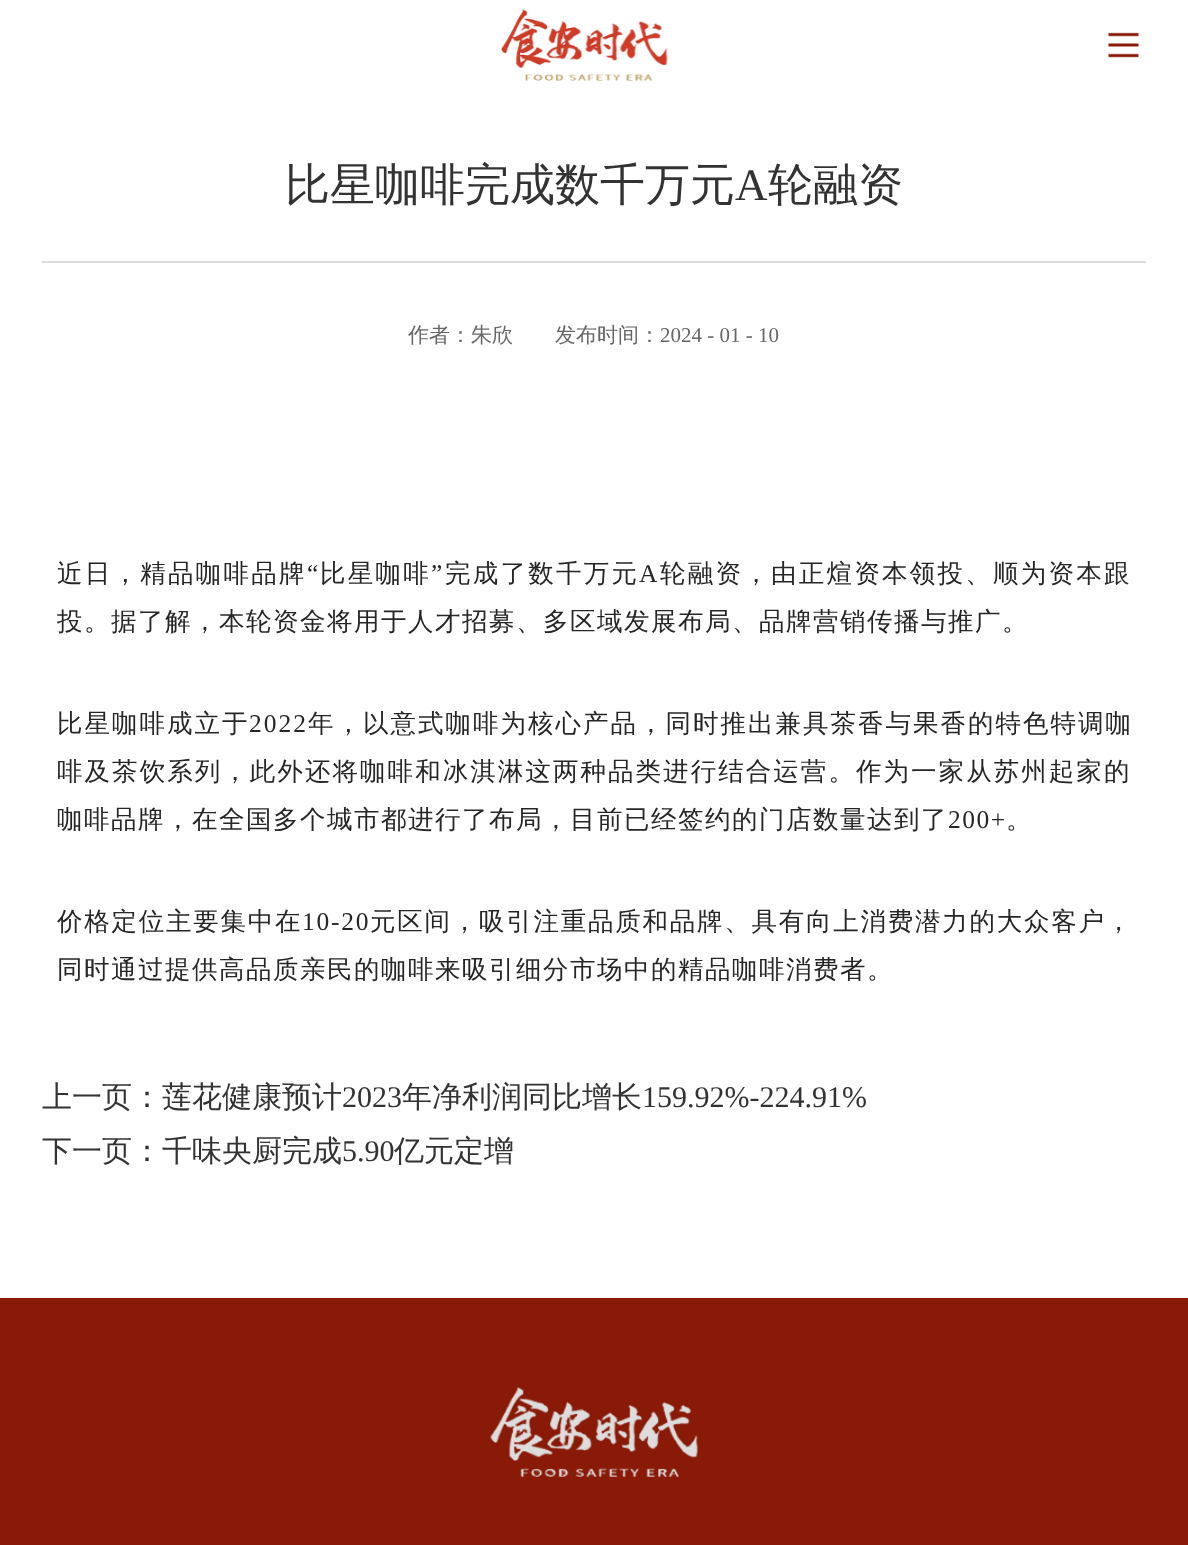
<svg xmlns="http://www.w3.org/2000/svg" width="1188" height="1545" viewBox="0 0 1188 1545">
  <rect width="100%" height="100%" fill="#ffffff"/>
  <image x="501" y="9" width="167" height="72" href="img1.png"/>
  <image x="1108" y="32" width="31" height="26" href="img2.png"/>
  <rect x="42" y="261" width="1104" height="2" fill="#dddddd"/>
  <text x="285" y="200" font-family="WenQuanYi Zen Hei" font-size="45" font-weight="500" fill="#333333">比星咖啡完成数千万元</text>
  <text x="735" y="200" font-family="Liberation Serif" font-size="45" fill="#333333">A</text>
  <text x="768" y="200" font-family="WenQuanYi Zen Hei" font-size="45" font-weight="500" fill="#333333">轮融资</text>
  <text x="408" y="342" font-family="WenQuanYi Zen Hei" font-size="21" font-weight="500" fill="#666666">作者：朱欣</text>
  <text x="555" y="342" font-family="WenQuanYi Zen Hei" font-size="21" font-weight="500" fill="#666666">发布时间：</text>
  <text x="660" y="342" font-family="Liberation Serif" font-size="21" fill="#666666">2024 - 01 - 10</text>
  <text x="57" y="582" font-family="WenQuanYi Zen Hei" font-size="25.5" font-weight="500" letter-spacing="2.25" fill="#262626">近日，精品咖啡品牌</text>
  <text x="307" y="582" font-family="Liberation Serif" font-size="25.5" letter-spacing="2.25" fill="#262626">“</text>
  <text x="320" y="582" font-family="WenQuanYi Zen Hei" font-size="25.5" font-weight="500" letter-spacing="2.25" fill="#262626">比星咖啡</text>
  <text x="431" y="582" font-family="Liberation Serif" font-size="25.5" letter-spacing="2.25" fill="#262626">”</text>
  <text x="445" y="582" font-family="WenQuanYi Zen Hei" font-size="25.5" font-weight="500" letter-spacing="2.25" fill="#262626">完成了数千万元</text>
  <text x="639" y="582" font-family="Liberation Serif" font-size="25.5" letter-spacing="2.25" fill="#262626">A</text>
  <text x="660" y="582" font-family="WenQuanYi Zen Hei" font-size="25.5" font-weight="500" letter-spacing="2.25" fill="#262626">轮融资，由正煊资本领投、顺为资本跟</text>
  <text x="57" y="630" font-family="WenQuanYi Zen Hei" font-size="25.5" font-weight="500" letter-spacing="1.5" fill="#262626">投。据了解，本轮资金将用于人才招募、多区域发展布局、品牌营销传播与推广。</text>
  <text x="57" y="732" font-family="WenQuanYi Zen Hei" font-size="25.5" font-weight="500" letter-spacing="2" fill="#262626">比星咖啡成立于</text>
  <text x="249" y="732" font-family="Liberation Serif" font-size="25.5" letter-spacing="2" fill="#262626">2022</text>
  <text x="308" y="732" font-family="WenQuanYi Zen Hei" font-size="25.5" font-weight="500" letter-spacing="2" fill="#262626">年，以意式咖啡为核心产品，同时推出兼具茶香与果香的特色特调咖</text>
  <text x="57" y="780" font-family="WenQuanYi Zen Hei" font-size="25.5" font-weight="500" letter-spacing="2.05" fill="#262626">啡及茶饮系列，此外还将咖啡和冰淇淋这两种品类进行结合运营。作为一家从苏州起家的</text>
  <text x="57" y="828" font-family="WenQuanYi Zen Hei" font-size="25.5" font-weight="500" letter-spacing="1.5" fill="#262626">咖啡品牌，在全国多个城市都进行了布局，目前已经签约的门店数量达到了</text>
  <text x="948" y="828" font-family="Liberation Serif" font-size="25.5" letter-spacing="1.5" fill="#262626">200+</text>
  <text x="1006" y="828" font-family="WenQuanYi Zen Hei" font-size="25.5" font-weight="500" letter-spacing="1.5" fill="#262626">。</text>
  <text x="57" y="930" font-family="WenQuanYi Zen Hei" font-size="25.5" font-weight="500" letter-spacing="1.75" fill="#262626">价格定位主要集中在</text>
  <text x="302" y="930" font-family="Liberation Serif" font-size="25.5" letter-spacing="1.75" fill="#262626">10-20</text>
  <text x="370" y="930" font-family="WenQuanYi Zen Hei" font-size="25.5" font-weight="500" letter-spacing="1.75" fill="#262626">元区间，吸引注重品质和品牌、具有向上消费潜力的大众客户，</text>
  <text x="57" y="978" font-family="WenQuanYi Zen Hei" font-size="25.5" font-weight="500" letter-spacing="1.5" fill="#262626">同时通过提供高品质亲民的咖啡来吸引细分市场中的精品咖啡消费者。</text>
  <text x="42" y="1107" font-family="WenQuanYi Zen Hei" font-size="30" font-weight="500" fill="#333333">上一页：莲花健康预计</text>
  <text x="342" y="1107" font-family="Liberation Serif" font-size="30" fill="#333333">2023</text>
  <text x="402" y="1107" font-family="WenQuanYi Zen Hei" font-size="30" font-weight="500" fill="#333333">年净利润同比增长</text>
  <text x="642" y="1107" font-family="Liberation Serif" font-size="30" fill="#333333">159.92%-224.91%</text>
  <text x="42" y="1161" font-family="WenQuanYi Zen Hei" font-size="30" font-weight="500" fill="#333333">下一页：千味央厨完成</text>
  <text x="342" y="1161" font-family="Liberation Serif" font-size="30" fill="#333333">5.90</text>
  <text x="394" y="1161" font-family="WenQuanYi Zen Hei" font-size="30" font-weight="500" fill="#333333">亿元定增</text>
  <rect x="0" y="1298" width="1188" height="247" fill="#891a08"/>
  <image x="490" y="1387" width="208" height="90" href="img3.png"/>
</svg>
